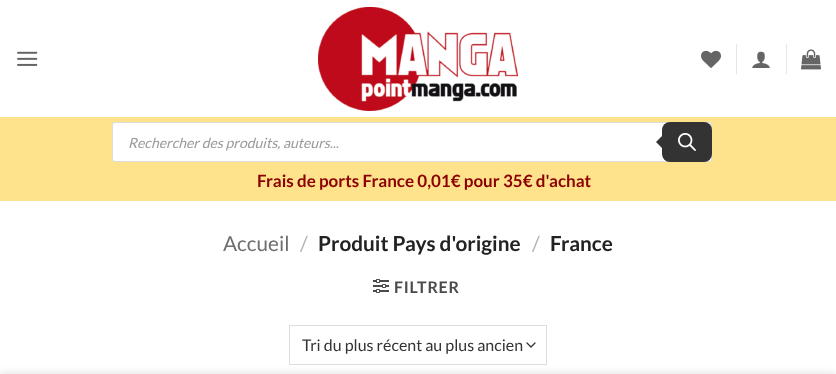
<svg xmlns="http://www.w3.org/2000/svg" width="836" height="374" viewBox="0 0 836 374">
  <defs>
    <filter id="blur1" x="-50%" y="-200%" width="200%" height="500%"><feGaussianBlur stdDeviation="4.5"/></filter>
  </defs>
  <rect width="100%" height="100%" fill="#ffffff"/>
  <image x="17" y="51" width="21" height="15" href="img1.png"/>
  <image x="318" y="7" width="200" height="104" href="img2.png"/>
  <image x="701" y="50" width="20" height="18" href="img3.png"/>
  <rect x="736" y="44" width="1" height="30" fill="#e6e6e6"/>
  <image x="752" y="51" width="18" height="17" href="img4.png"/>
  <rect x="786" y="44" width="1" height="30" fill="#e6e6e6"/>
  <image x="801" y="49" width="20" height="21" href="img5.png"/>
  <rect x="0" y="117" width="836" height="84" fill="#ffe28c"/>
  <rect x="112.5" y="122.5" width="599" height="39" rx="2.5" fill="#ffffff" stroke="#dddddd"/>
  <text x="128" y="148" font-family="Lato" font-size="14" font-style="italic" fill="#999999">Rechercher des produits, auteurs...</text>
  <rect x="662" y="122" width="50" height="40" rx="8" fill="#333333"/>
  <path d="M664 134V150L656 142Z" fill="#333333"/>
  <image x="678" y="133" width="18" height="18" href="img6.png"/>
  <text x="257" y="187" font-family="Lato" font-size="17" font-weight="bold" fill="#8b0000">Frais de ports France 0,01€ pour 35€ d'achat</text>
  <text x="223" y="251" font-family="Lato" font-size="20.75" fill="#6e6e6e">Accueil</text>
  <text x="300" y="251" font-family="Lato" font-size="20.75" fill="#b2b2b2">/</text>
  <text x="318" y="251" font-family="Lato" font-size="20.75" font-weight="bold" fill="#222222">Produit Pays d'origine</text>
  <text x="532" y="251" font-family="Lato" font-size="20.75" fill="#b2b2b2">/</text>
  <text x="550" y="251" font-family="Lato" font-size="20.75" font-weight="bold" fill="#222222">France</text>
  <image x="373" y="279" width="16" height="14" href="img7.png"/>
  <text x="394" y="293" font-family="Lato" font-size="16" font-weight="bold" letter-spacing="0.75" fill="#4a4a4a">FILTRER</text>
  <path d="M527 343L531 347L535 343" fill="none" stroke="#333333" stroke-width="1.3" stroke-linecap="round" stroke-linejoin="round"/>
  <rect x="289.5" y="325.5" width="257" height="39" fill="none" stroke="#dddddd"/>
  <text x="302" y="351" font-family="Lato" font-size="16" fill="#333333">Tri du plus récent au plus ancien</text>
  <rect x="0" y="374" width="836" height="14" fill="#000000" fill-opacity="0.14" filter="url(#blur1)"/>
</svg>
